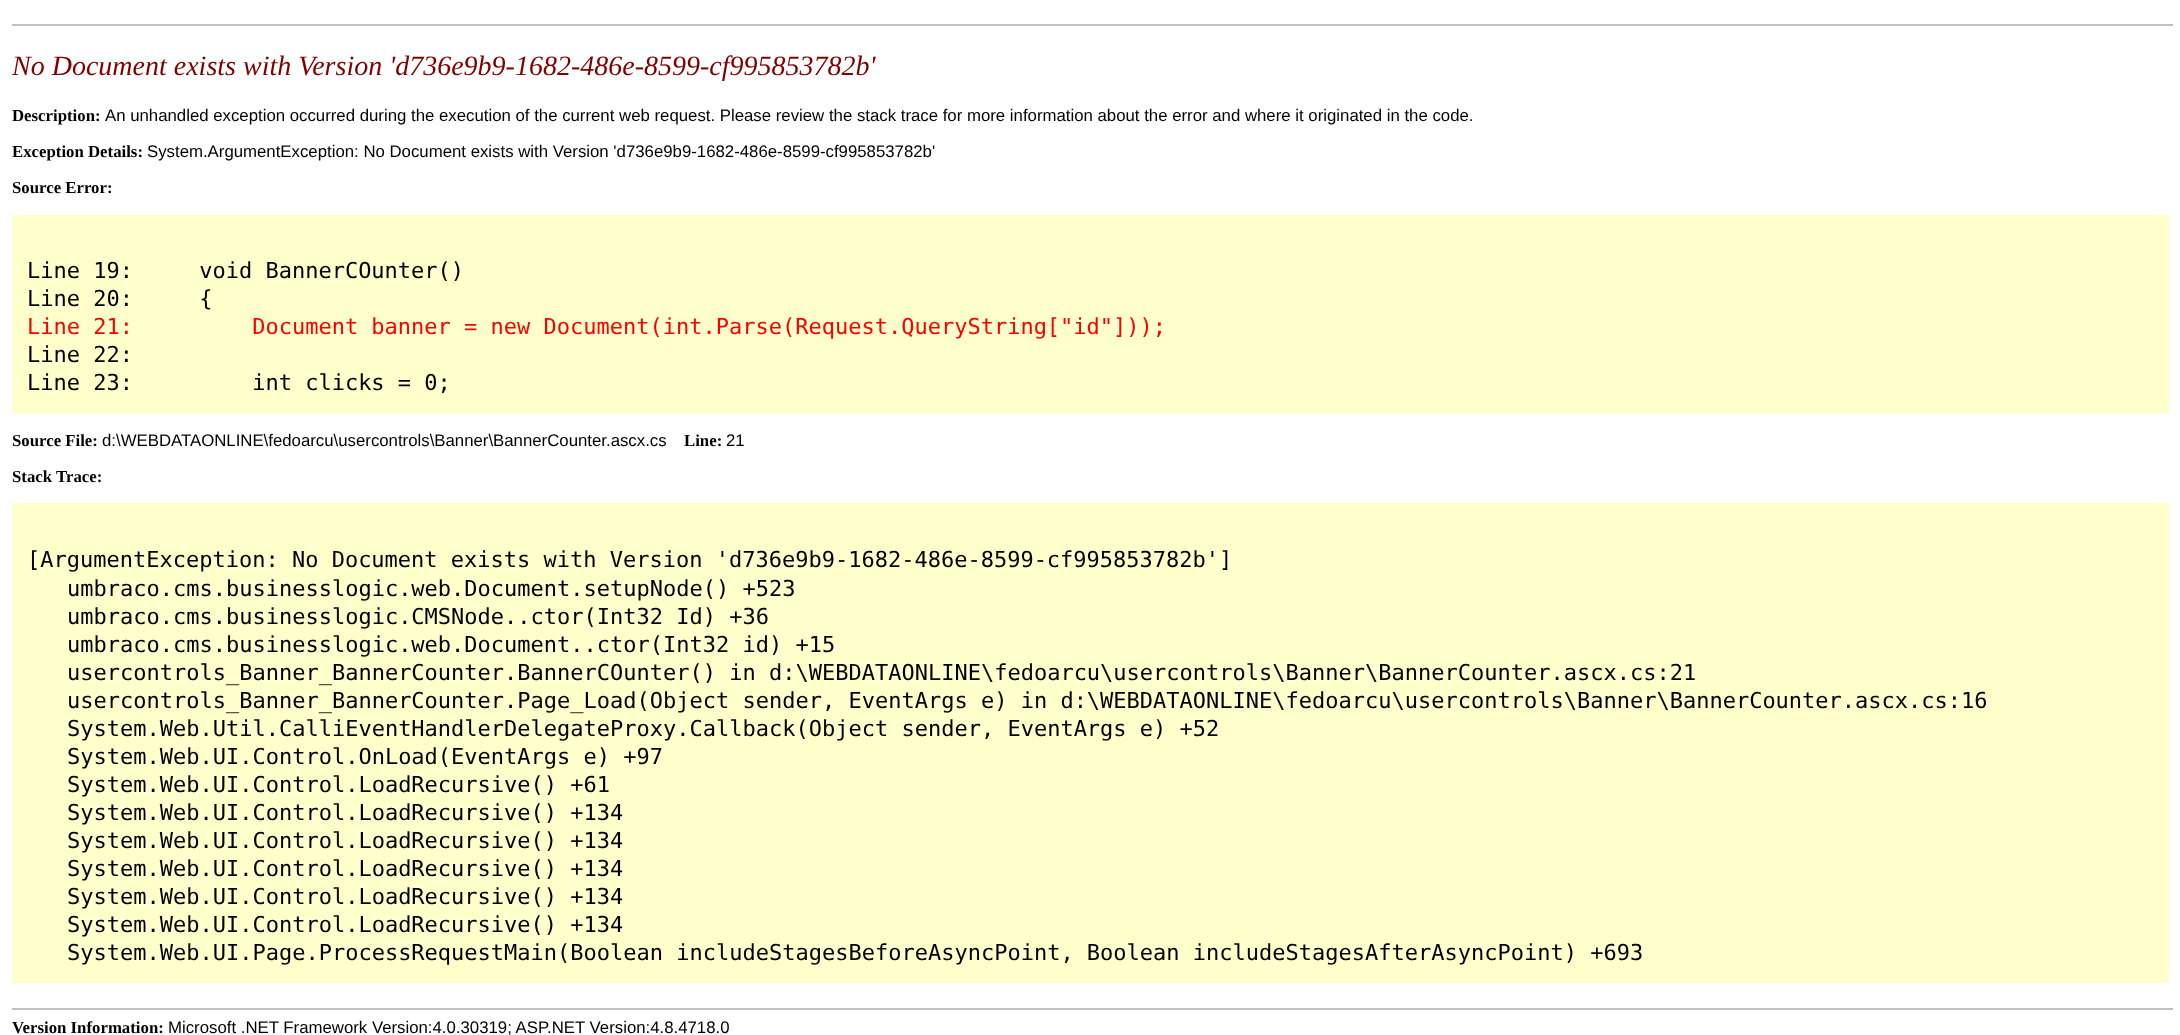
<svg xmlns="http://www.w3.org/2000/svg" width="2180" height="1035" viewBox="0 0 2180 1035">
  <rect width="100%" height="100%" fill="#ffffff"/>
  <rect x="12" y="24" width="2161" height="2" fill="#c0c0c0"/>
  <text x="12" y="75" font-family="Liberation Serif" font-size="28" font-style="italic" fill="#800000">No Document exists with Version 'd736e9b9-1682-486e-8599-cf995853782b'</text>
  <text x="12" y="121" font-family="Liberation Serif" font-size="16.8" font-weight="bold" fill="#000000">Description:</text>
  <text x="105" y="121" font-family="Liberation Sans" font-size="16.8" fill="#000000">An unhandled exception occurred during the execution of the current web request. Please review the stack trace for more information about the error and where it originated in the code.</text>
  <text x="12" y="157" font-family="Liberation Serif" font-size="16.8" font-weight="bold" fill="#000000">Exception Details:</text>
  <text x="147" y="157" font-family="Liberation Sans" font-size="16.8" fill="#000000">System.ArgumentException: No Document exists with Version 'd736e9b9-1682-486e-8599-cf995853782b'</text>
  <text x="12" y="193" font-family="Liberation Serif" font-size="16.8" font-weight="bold" fill="#000000">Source Error:</text>
  <rect x="12" y="215" width="2157" height="198" fill="#ffffcc"/>
  <text x="27" y="278" font-family="DejaVu Sans Mono" font-size="22" fill="#000000" xml:space="preserve">Line 19:     void BannerCOunter()</text>
  <text x="27" y="306" font-family="DejaVu Sans Mono" font-size="22" fill="#000000" xml:space="preserve">Line 20:     {</text>
  <text x="27" y="334" font-family="DejaVu Sans Mono" font-size="22" fill="#ff0000" xml:space="preserve">Line 21:         Document banner = new Document(int.Parse(Request.QueryString["id"]));</text>
  <text x="27" y="362" font-family="DejaVu Sans Mono" font-size="22" fill="#000000">Line 22:</text>
  <text x="27" y="390" font-family="DejaVu Sans Mono" font-size="22" fill="#000000" xml:space="preserve">Line 23:         int clicks = 0;</text>
  <text x="12" y="446" font-family="Liberation Serif" font-size="16.8" font-weight="bold" fill="#000000">Source File:</text>
  <text x="102" y="446" font-family="Liberation Sans" font-size="16.8" fill="#000000">d:\WEBDATAONLINE\fedoarcu\usercontrols\Banner\BannerCounter.ascx.cs</text>
  <text x="684" y="446" font-family="Liberation Serif" font-size="16.8" font-weight="bold" fill="#000000">Line:</text>
  <text x="726" y="446" font-family="Liberation Sans" font-size="16.8" fill="#000000">21</text>
  <text x="12" y="482" font-family="Liberation Serif" font-size="16.8" font-weight="bold" fill="#000000">Stack Trace:</text>
  <rect x="12" y="503" width="2157" height="480" fill="#ffffcc"/>
  <text x="27" y="567" font-family="DejaVu Sans Mono" font-size="22" fill="#000000">[ArgumentException: No Document exists with Version 'd736e9b9-1682-486e-8599-cf995853782b']</text>
  <text x="67" y="596" font-family="DejaVu Sans Mono" font-size="22" fill="#000000">umbraco.cms.businesslogic.web.Document.setupNode() +523</text>
  <text x="67" y="624" font-family="DejaVu Sans Mono" font-size="22" fill="#000000">umbraco.cms.businesslogic.CMSNode..ctor(Int32 Id) +36</text>
  <text x="67" y="652" font-family="DejaVu Sans Mono" font-size="22" fill="#000000">umbraco.cms.businesslogic.web.Document..ctor(Int32 id) +15</text>
  <text x="67" y="680" font-family="DejaVu Sans Mono" font-size="22" fill="#000000">usercontrols_Banner_BannerCounter.BannerCOunter() in d:\WEBDATAONLINE\fedoarcu\usercontrols\Banner\BannerCounter.ascx.cs:21</text>
  <text x="67" y="708" font-family="DejaVu Sans Mono" font-size="22" fill="#000000">usercontrols_Banner_BannerCounter.Page_Load(Object sender, EventArgs e) in d:\WEBDATAONLINE\fedoarcu\usercontrols\Banner\BannerCounter.ascx.cs:16</text>
  <text x="67" y="736" font-family="DejaVu Sans Mono" font-size="22" fill="#000000">System.Web.Util.CalliEventHandlerDelegateProxy.Callback(Object sender, EventArgs e) +52</text>
  <text x="67" y="764" font-family="DejaVu Sans Mono" font-size="22" fill="#000000">System.Web.UI.Control.OnLoad(EventArgs e) +97</text>
  <text x="67" y="792" font-family="DejaVu Sans Mono" font-size="22" fill="#000000">System.Web.UI.Control.LoadRecursive() +61</text>
  <text x="67" y="820" font-family="DejaVu Sans Mono" font-size="22" fill="#000000">System.Web.UI.Control.LoadRecursive() +134</text>
  <text x="67" y="848" font-family="DejaVu Sans Mono" font-size="22" fill="#000000">System.Web.UI.Control.LoadRecursive() +134</text>
  <text x="67" y="876" font-family="DejaVu Sans Mono" font-size="22" fill="#000000">System.Web.UI.Control.LoadRecursive() +134</text>
  <text x="67" y="904" font-family="DejaVu Sans Mono" font-size="22" fill="#000000">System.Web.UI.Control.LoadRecursive() +134</text>
  <text x="67" y="932" font-family="DejaVu Sans Mono" font-size="22" fill="#000000">System.Web.UI.Control.LoadRecursive() +134</text>
  <text x="67" y="960" font-family="DejaVu Sans Mono" font-size="22" fill="#000000">System.Web.UI.Page.ProcessRequestMain(Boolean includeStagesBeforeAsyncPoint, Boolean includeStagesAfterAsyncPoint) +693</text>
  <rect x="12" y="1008" width="2161" height="2" fill="#c0c0c0"/>
  <text x="12" y="1033" font-family="Liberation Serif" font-size="16.8" font-weight="bold" fill="#000000">Version Information:</text>
  <text x="168" y="1033" font-family="Liberation Sans" font-size="16.8" fill="#000000">Microsoft .NET Framework Version:4.0.30319; ASP.NET Version:4.8.4718.0</text>
</svg>
